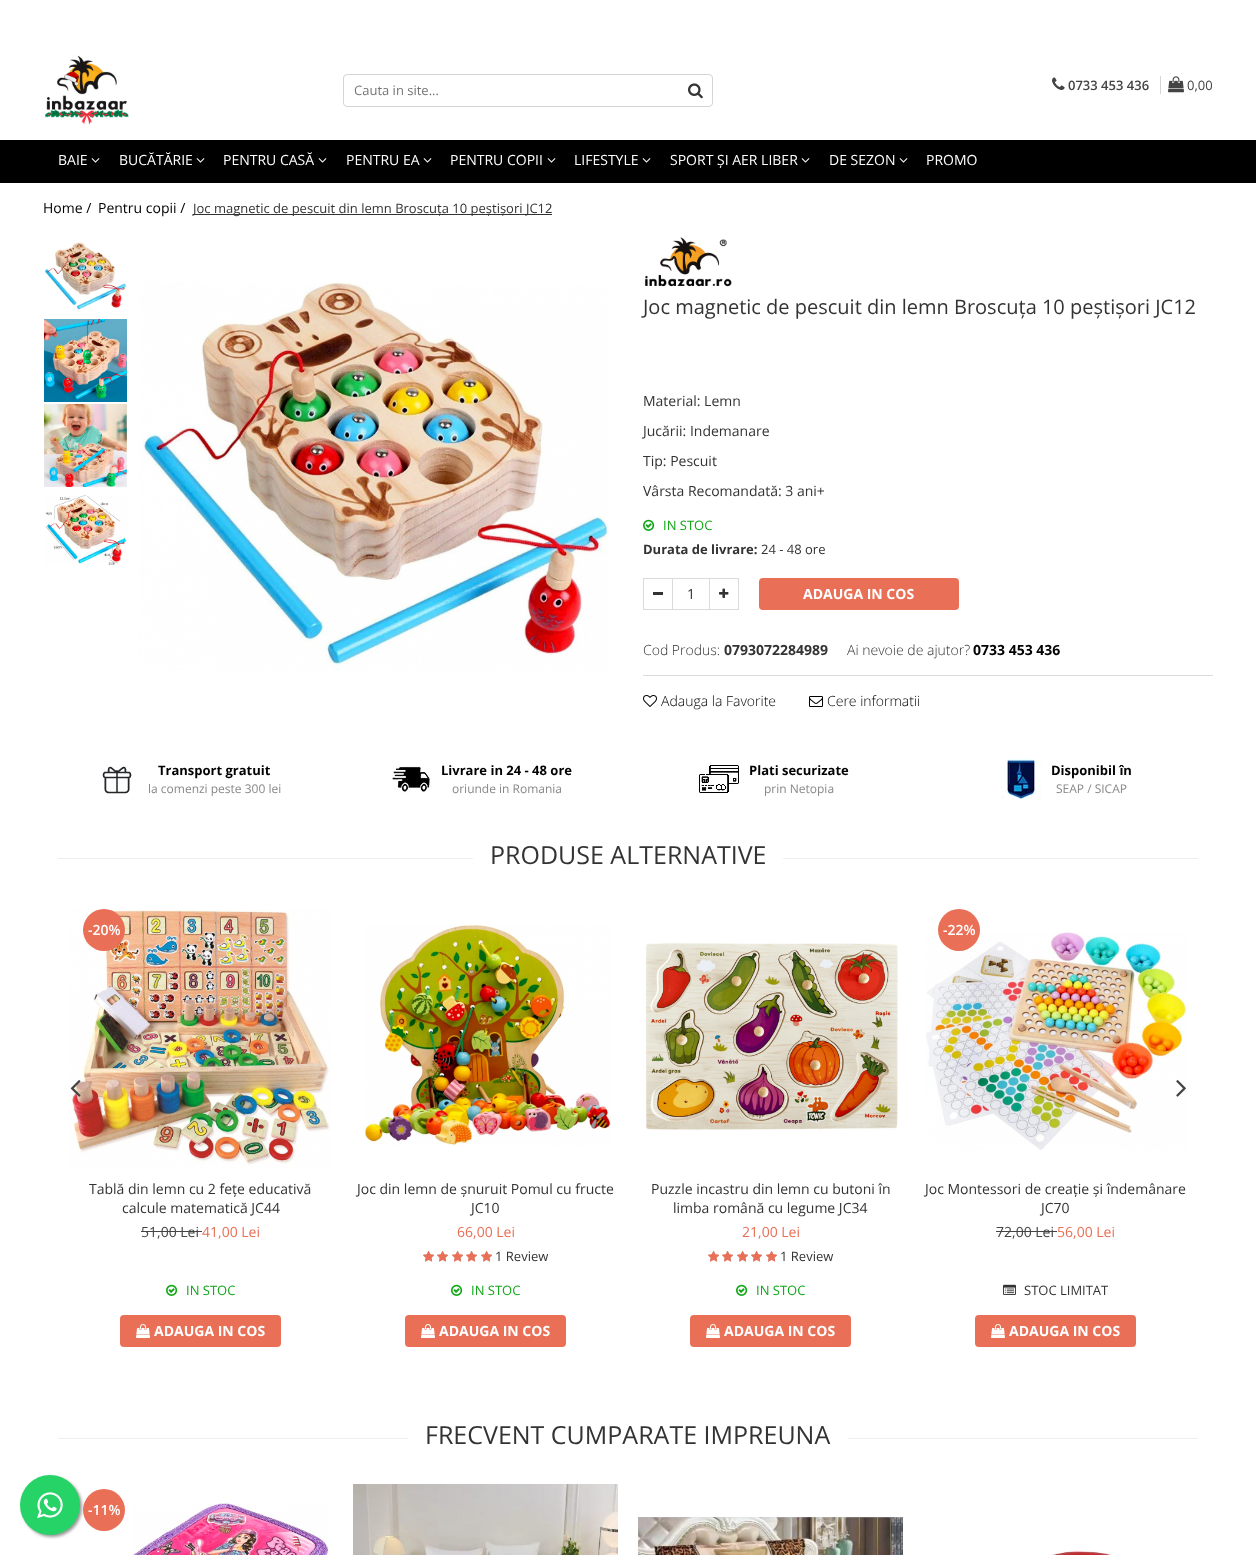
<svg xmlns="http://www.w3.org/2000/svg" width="1256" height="1555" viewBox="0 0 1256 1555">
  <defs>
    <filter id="blur1" x="-50%" y="-200%" width="200%" height="500%"><feGaussianBlur stdDeviation="1.5"/></filter>
  </defs>
  <rect width="100%" height="100%" fill="#ffffff"/>
  <image x="44" y="55" width="85" height="70" href="img1.png"/>
  <rect x="343.5" y="74.5" width="369" height="32" rx="3.5" fill="none" stroke="#d5d5d5"/>
  <text x="354" y="95" font-family="Open Sans" font-size="13" fill="#757575">Cauta in site...</text>
  <image x="688" y="83" width="15" height="16" href="img2.png"/>
  <image x="1052" y="77" width="13" height="13" href="img3.png"/>
  <text x="1068" y="90" font-family="Open Sans" font-size="13" font-weight="600" fill="#444444">0733 453 436</text>
  <rect x="1160" y="76" width="1" height="18" fill="#d5d5d5"/>
  <image x="1168" y="76" width="16" height="17" href="img4.png"/>
  <text x="1187" y="90" font-family="Open Sans" font-size="13" fill="#444444">0,00</text>
  <rect x="0" y="140" width="1256" height="43" fill="#000000"/>
  <text x="58" y="165" font-family="Open Sans" font-size="14" fill="#ffffff">BAIE</text>
  <image x="91" y="158" width="9" height="5" href="img5.png"/>
  <text x="119" y="165" font-family="Open Sans" font-size="14" fill="#ffffff">BUCĂTĂRIE</text>
  <image x="196" y="158" width="9" height="5" href="img5.png"/>
  <text x="223" y="165" font-family="Open Sans" font-size="14" fill="#ffffff">PENTRU CASĂ</text>
  <image x="318" y="158" width="9" height="5" href="img5.png"/>
  <text x="346" y="165" font-family="Open Sans" font-size="14" fill="#ffffff">PENTRU EA</text>
  <image x="423" y="158" width="9" height="5" href="img5.png"/>
  <text x="450" y="165" font-family="Open Sans" font-size="14" fill="#ffffff">PENTRU COPII</text>
  <image x="547" y="158" width="9" height="5" href="img5.png"/>
  <text x="574" y="165" font-family="Open Sans" font-size="14" fill="#ffffff">LIFESTYLE</text>
  <image x="642" y="158" width="9" height="5" href="img5.png"/>
  <text x="670" y="165" font-family="Open Sans" font-size="14" fill="#ffffff">SPORT ȘI AER LIBER</text>
  <image x="801" y="158" width="9" height="5" href="img5.png"/>
  <text x="829" y="165" font-family="Open Sans" font-size="14" fill="#ffffff">DE SEZON</text>
  <image x="899" y="158" width="9" height="5" href="img5.png"/>
  <text x="926" y="165" font-family="Open Sans" font-size="14" fill="#ffffff">PROMO</text>
  <text x="43" y="213" font-family="Open Sans" font-size="14" fill="#000000">Home /</text>
  <text x="98" y="213" font-family="Open Sans" font-size="14" fill="#000000">Pentru copii /</text>
  <rect x="193" y="214" width="359" height="1" fill="#333333"/>
  <text x="193" y="213" font-family="Open Sans" font-size="13" fill="#333333">Joc magnetic de pescuit din lemn Broscuța 10 peștișori JC12</text>
  <image x="44" y="242" width="83" height="68" href="img6.png"/>
  <image x="44" y="319" width="83" height="83" href="img7.png"/>
  <image x="44" y="404" width="83" height="83" href="img8.png"/>
  <image x="45" y="495" width="82" height="70" href="img9.png"/>
  <image x="138" y="282" width="471" height="389" href="img10.png"/>
  <image x="644" y="237" width="88" height="50" href="img11.png"/>
  <text x="643" y="314" font-family="Open Sans" font-size="20" fill="#333333">Joc magnetic de pescuit din lemn Broscuța 10 peștișori JC12</text>
  <text x="643" y="406" font-family="Open Sans" font-size="14" fill="#333333">Material: Lemn</text>
  <text x="643" y="436" font-family="Open Sans" font-size="14" fill="#333333">Jucării: Indemanare</text>
  <text x="643" y="466" font-family="Open Sans" font-size="14" fill="#333333">Tip: Pescuit</text>
  <text x="643" y="496" font-family="Open Sans" font-size="14" fill="#333333">Vârsta Recomandată: 3 ani+</text>
  <image x="643" y="519" width="12" height="12" href="img12.png"/>
  <text x="663" y="530" font-family="Open Sans" font-size="13" fill="#11a717">IN STOC</text>
  <text x="643" y="554" font-family="Open Sans" font-size="13" font-weight="bold" fill="#333333">Durata de livrare:</text>
  <text x="761" y="554" font-family="Open Sans" font-size="13" fill="#333333">24 - 48 ore</text>
  <rect x="643.5" y="578.5" width="29" height="31" fill="none" stroke="#dbdbdb"/>
  <rect x="653" y="592" width="10" height="3" fill="#333333"/>
  <rect x="673" y="578" width="36" height="1" fill="#dbdbdb"/>
  <rect x="673" y="609" width="36" height="1" fill="#dbdbdb"/>
  <text x="687" y="599" font-family="Open Sans" font-size="14" fill="#333333">1</text>
  <rect x="709.5" y="578.5" width="29" height="31" fill="none" stroke="#dbdbdb"/>
  <image x="719" y="588" width="10" height="10" href="img13.png"/>
  <rect x="759" y="578" width="200" height="32" rx="4" fill="#e96f56"/>
  <text x="803" y="599" font-family="Open Sans" font-size="14" font-weight="bold" fill="#ffffff">ADAUGA IN COS</text>
  <text x="643" y="655" font-family="Open Sans" font-size="14" font-weight="300" fill="#333333">Cod Produs:</text>
  <text x="724" y="655" font-family="Open Sans" font-size="14" font-weight="bold" fill="#333333">0793072284989</text>
  <text x="847" y="655" font-family="Open Sans" font-size="14" font-weight="300" fill="#333333">Ai nevoie de ajutor?</text>
  <text x="973" y="655" font-family="Open Sans" font-size="14" font-weight="bold" fill="#000000">0733 453 436</text>
  <rect x="643" y="675" width="570" height="1" fill="#dbdbdb"/>
  <image x="643" y="695" width="14" height="12" href="img14.png"/>
  <text x="661" y="706" font-family="Open Sans" font-size="14" font-weight="300" fill="#000000">Adauga la Favorite</text>
  <image x="809" y="696" width="14" height="11" href="img15.png"/>
  <text x="827" y="706" font-family="Open Sans" font-size="14" font-weight="300" fill="#000000">Cere informatii</text>
  <image x="102" y="764" width="30" height="31" href="img16.png"/>
  <text x="158" y="775" font-family="Open Sans" font-size="13" font-weight="bold" fill="#000000">Transport gratuit</text>
  <text x="148" y="793" font-family="Open Sans" font-size="12" fill="#898888">la comenzi peste 300 lei</text>
  <image x="391" y="766" width="40" height="29" href="img17.png"/>
  <text x="441" y="775" font-family="Open Sans" font-size="13" font-weight="bold" fill="#000000">Livrare in 24 - 48 ore</text>
  <text x="452" y="793" font-family="Open Sans" font-size="12" fill="#898888">oriunde in Romania</text>
  <image x="699" y="763" width="40" height="30" href="img18.png"/>
  <text x="749" y="775" font-family="Open Sans" font-size="13" font-weight="bold" fill="#000000">Plati securizate</text>
  <text x="764" y="793" font-family="Open Sans" font-size="12" fill="#898888">prin Netopia</text>
  <image x="1001" y="759" width="40" height="40" href="img19.png"/>
  <text x="1051" y="775" font-family="Open Sans" font-size="13" font-weight="bold" fill="#000000">Disponibil în</text>
  <text x="1056" y="793" font-family="Open Sans" font-size="12" fill="#898888">SEAP / SICAP</text>
  <rect x="58" y="858" width="1140" height="1" fill="#eeeeee"/>
  <rect x="473" y="858" width="310" height="1" fill="#ffffff"/>
  <text x="490" y="864" font-family="Open Sans" font-size="25" fill="#333333">PRODUSE ALTERNATIVE</text>
  <image x="69" y="909" width="262" height="259" href="img20.png"/>
  <circle cx="104" cy="930" r="21" fill="#e96f56"/>
  <text x="88" y="935" font-family="Open Sans" font-size="14" font-weight="600" fill="#ffffff">-20%</text>
  <text x="89" y="1194" font-family="Open Sans" font-size="14" fill="#333333">Tablă din lemn cu 2 fețe educativă</text>
  <text x="122" y="1213" font-family="Open Sans" font-size="14" fill="#333333">calcule matematică JC44</text>
  <text x="141" y="1237" font-family="Open Sans" font-size="14" fill="#444444">51,00 Lei</text>
  <rect x="141" y="1231" width="61" height="1" fill="#444444"/>
  <text x="202" y="1237" font-family="Open Sans" font-size="14" fill="#e96f56">41,00 Lei</text>
  <image x="166" y="1284" width="12" height="12" href="img12.png"/>
  <text x="186" y="1295" font-family="Open Sans" font-size="13" fill="#11a717">IN STOC</text>
  <rect x="120" y="1315" width="161" height="32" rx="4" fill="#e96f56"/>
  <image x="136" y="1324" width="14" height="14" href="img21.png"/>
  <text x="154" y="1336" font-family="Open Sans" font-size="14" font-weight="bold" fill="#ffffff">ADAUGA IN COS</text>
  <image x="364" y="924" width="247" height="222" href="img22.png"/>
  <text x="357" y="1194" font-family="Open Sans" font-size="14" fill="#333333">Joc din lemn de șnuruit Pomul cu fructe</text>
  <text x="471" y="1213" font-family="Open Sans" font-size="14" fill="#333333">JC10</text>
  <text x="457" y="1237" font-family="Open Sans" font-size="14" fill="#e96f56">66,00 Lei</text>
  <image x="423" y="1251" width="11" height="11" href="img23.png"/>
  <image x="423" y="1251" width="11" height="11" href="img24.png"/>
  <image x="437" y="1251" width="11" height="11" href="img23.png"/>
  <image x="437" y="1251" width="11" height="11" href="img24.png"/>
  <image x="452" y="1251" width="11" height="11" href="img23.png"/>
  <image x="452" y="1251" width="11" height="11" href="img24.png"/>
  <image x="466" y="1251" width="11" height="11" href="img23.png"/>
  <image x="466" y="1251" width="11" height="11" href="img24.png"/>
  <image x="481" y="1251" width="11" height="11" href="img23.png"/>
  <image x="481" y="1251" width="11" height="11" href="img24.png"/>
  <text x="495" y="1261" font-family="Open Sans" font-size="13" fill="#333333">1 Review</text>
  <image x="451" y="1284" width="12" height="12" href="img12.png"/>
  <text x="471" y="1295" font-family="Open Sans" font-size="13" fill="#11a717">IN STOC</text>
  <rect x="405" y="1315" width="161" height="32" rx="4" fill="#e96f56"/>
  <image x="421" y="1324" width="14" height="14" href="img21.png"/>
  <text x="439" y="1336" font-family="Open Sans" font-size="14" font-weight="bold" fill="#ffffff">ADAUGA IN COS</text>
  <image x="645" y="943" width="253" height="188" href="img25.png"/>
  <text x="651" y="1194" font-family="Open Sans" font-size="14" fill="#333333">Puzzle incastru din lemn cu butoni în</text>
  <text x="673" y="1213" font-family="Open Sans" font-size="14" fill="#333333">limba română cu legume JC34</text>
  <text x="742" y="1237" font-family="Open Sans" font-size="14" fill="#e96f56">21,00 Lei</text>
  <image x="708" y="1251" width="11" height="11" href="img23.png"/>
  <image x="708" y="1251" width="11" height="11" href="img24.png"/>
  <image x="722" y="1251" width="11" height="11" href="img23.png"/>
  <image x="722" y="1251" width="11" height="11" href="img24.png"/>
  <image x="737" y="1251" width="11" height="11" href="img23.png"/>
  <image x="737" y="1251" width="11" height="11" href="img24.png"/>
  <image x="751" y="1251" width="11" height="11" href="img23.png"/>
  <image x="751" y="1251" width="11" height="11" href="img24.png"/>
  <image x="766" y="1251" width="11" height="11" href="img23.png"/>
  <image x="766" y="1251" width="11" height="11" href="img24.png"/>
  <text x="780" y="1261" font-family="Open Sans" font-size="13" fill="#333333">1 Review</text>
  <image x="736" y="1284" width="12" height="12" href="img12.png"/>
  <text x="756" y="1295" font-family="Open Sans" font-size="13" fill="#11a717">IN STOC</text>
  <rect x="690" y="1315" width="161" height="32" rx="4" fill="#e96f56"/>
  <image x="706" y="1324" width="14" height="14" href="img21.png"/>
  <text x="724" y="1336" font-family="Open Sans" font-size="14" font-weight="bold" fill="#ffffff">ADAUGA IN COS</text>
  <image x="926" y="932" width="261" height="218" href="img26.png"/>
  <circle cx="959" cy="930" r="21" fill="#e96f56"/>
  <text x="943" y="935" font-family="Open Sans" font-size="14" font-weight="600" fill="#ffffff">-22%</text>
  <text x="925" y="1194" font-family="Open Sans" font-size="14" fill="#333333">Joc Montessori de creație și îndemânare</text>
  <text x="1041" y="1213" font-family="Open Sans" font-size="14" fill="#333333">JC70</text>
  <text x="996" y="1237" font-family="Open Sans" font-size="14" fill="#444444">72,00 Lei</text>
  <rect x="996" y="1231" width="61" height="1" fill="#444444"/>
  <text x="1057" y="1237" font-family="Open Sans" font-size="14" fill="#e96f56">56,00 Lei</text>
  <image x="1003" y="1284" width="13" height="11" href="img27.png"/>
  <text x="1024" y="1295" font-family="Open Sans" font-size="13" fill="#333333">STOC LIMITAT</text>
  <rect x="975" y="1315" width="161" height="32" rx="4" fill="#e96f56"/>
  <image x="991" y="1324" width="14" height="14" href="img21.png"/>
  <text x="1009" y="1336" font-family="Open Sans" font-size="14" font-weight="bold" fill="#ffffff">ADAUGA IN COS</text>
  <image x="70" y="1080" width="11" height="17" href="img28.png"/>
  <image x="1176" y="1080" width="10" height="17" href="img29.png"/>
  <rect x="58" y="1438" width="1140" height="1" fill="#eeeeee"/>
  <rect x="408" y="1438" width="440" height="1" fill="#ffffff"/>
  <text x="425" y="1444" font-family="Open Sans" font-size="25" fill="#333333">FRECVENT CUMPARATE IMPREUNA</text>
  <circle cx="104" cy="1510" r="21" fill="#e96f56"/>
  <text x="88" y="1515" font-family="Open Sans" font-size="14" font-weight="600" fill="#ffffff">-11%</text>
  <image x="133" y="1503" width="196" height="52" href="img30.png"/>
  <image x="353" y="1484" width="265" height="71" href="img31.png"/>
  <image x="638" y="1517" width="265" height="38" href="img32.png"/>
  <image x="1049" y="1550" width="66" height="5" href="img33.png"/>
  <rect x="22" y="1477" width="60" height="60" rx="30" fill="#999999" filter="url(#blur1)"/>
  <circle cx="50" cy="1505" r="30" fill="#25d366"/>
  <image x="37" y="1492" width="26" height="27" href="img34.png"/>
</svg>
